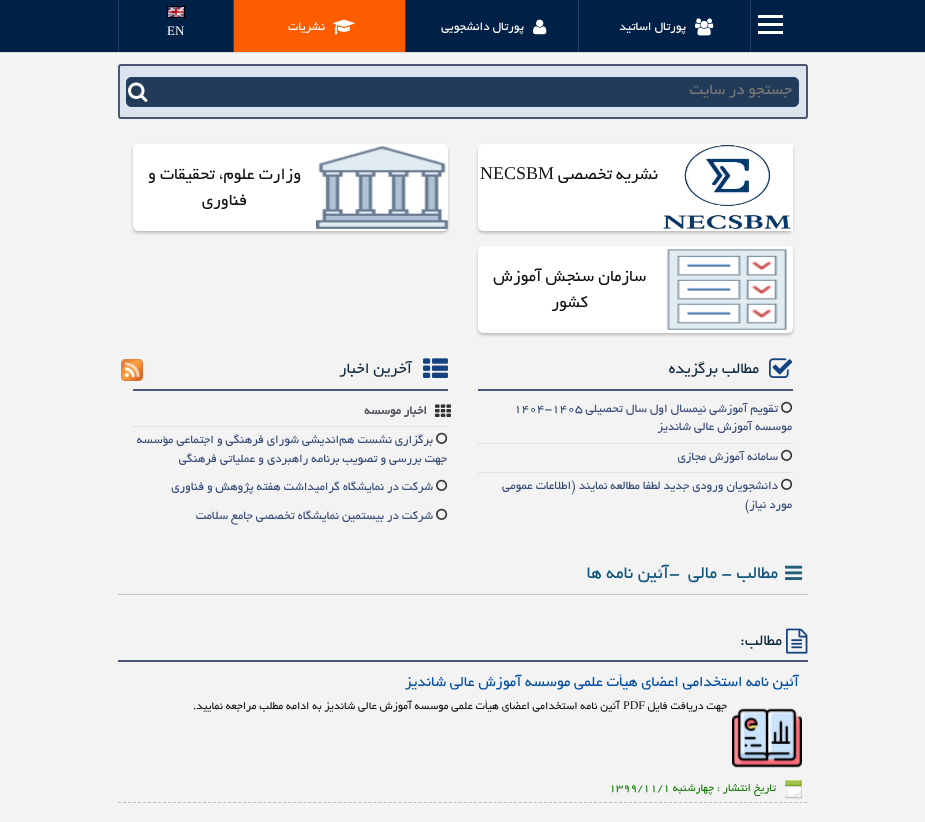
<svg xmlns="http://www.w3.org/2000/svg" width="925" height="822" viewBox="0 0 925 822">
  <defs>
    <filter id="blur1" x="-50%" y="-200%" width="200%" height="500%"><feGaussianBlur stdDeviation="1.5"/></filter>
  </defs>
  <rect width="100%" height="100%" fill="#f3f3f3"/>
  <rect x="0" y="0" width="925" height="52" fill="#002147"/>
  <rect x="0" y="52" width="925" height="1" fill="#dedede"/>
  <rect x="750" y="0" width="1" height="52" fill="#244061"/>
  <rect x="758" y="15" width="25" height="3" fill="#ffffff"/>
  <rect x="758" y="23" width="25" height="3" fill="#ffffff"/>
  <rect x="758" y="31" width="25" height="3" fill="#ffffff"/>
  <rect x="578" y="0" width="1" height="52" fill="#244061"/>
  <image x="695" y="18" width="19" height="18" href="img1.png"/>
  <text x="686" y="30" font-family="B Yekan" font-size="13" direction="rtl" fill="#ffffff">پورتال اساتید</text>
  <rect x="405" y="0" width="1" height="52" fill="#244061"/>
  <image x="533" y="19" width="14" height="16" href="img2.png"/>
  <text x="524" y="30" font-family="B Yekan" font-size="13" direction="rtl" fill="#ffffff">پورتال دانشجویی</text>
  <rect x="234" y="0" width="171" height="52" fill="#fb5d00"/>
  <rect x="233" y="0" width="1" height="52" fill="#244061"/>
  <image x="333" y="19" width="22" height="16" href="img3.png"/>
  <text x="325" y="30" font-family="B Yekan" font-size="13" direction="rtl" fill="#ffffff">نشریات</text>
  <rect x="118" y="0" width="1" height="52" fill="#244061"/>
  <image x="167" y="6" width="18" height="12" href="img4.png"/>
  <text x="167" y="35" font-family="Liberation Serif" font-size="13" fill="#ffffff">EN</text>
  <rect x="119" y="65" width="688" height="53" rx="2" fill="#dde3ed" stroke="#4a5674" stroke-width="2"/>
  <rect x="126.5" y="77.5" width="672" height="29" rx="4.5" fill="#213b59" stroke="#21446c"/>
  <text x="792" y="94" font-family="B Yekan" font-size="17" direction="rtl" fill="#757575">جستجو در سایت</text>
  <image x="128" y="82" width="20" height="20" href="img5.png"/>
  <rect x="478" y="146" width="315" height="87" rx="5" fill="#bdbaba" filter="url(#blur1)"/>
  <rect x="478" y="144" width="315" height="87" rx="5" fill="#ffffff"/>
  <image x="663" y="144" width="130" height="87" href="img6.png"/>
  <text x="658" y="179" font-family="B Yekan" font-size="18" direction="rtl" fill="#111111">نشريه تخصصي</text>
  <text x="480" y="179" font-family="Liberation Serif" font-size="18" fill="#111111">NECSBM</text>
  <rect x="133" y="146" width="315" height="87" rx="5" fill="#bdbaba" filter="url(#blur1)"/>
  <rect x="133" y="144" width="315" height="87" rx="5" fill="#ffffff"/>
  <image x="316" y="145" width="132" height="84" href="img7.png"/>
  <text x="301" y="179" font-family="B Yekan" font-size="18" direction="rtl" fill="#111111">وزارت علوم، تحقيقات و</text>
  <text x="247" y="205" font-family="B Yekan" font-size="18" direction="rtl" fill="#111111">فناوري</text>
  <rect x="478" y="248" width="315" height="87" rx="5" fill="#bdbaba" filter="url(#blur1)"/>
  <rect x="478" y="246" width="315" height="87" rx="5" fill="#ffffff"/>
  <image x="666" y="248" width="122" height="82" href="img8.png"/>
  <text x="646" y="281" font-family="B Yekan" font-size="18" direction="rtl" fill="#111111">سازمان سنجش آموزش</text>
  <text x="588" y="307" font-family="B Yekan" font-size="18" direction="rtl" fill="#111111">كشور</text>
  <rect x="478" y="389" width="315" height="2" fill="#4a5674"/>
  <image x="769" y="358" width="24" height="20" href="img9.png"/>
  <text x="759" y="373" font-family="B Yekan" font-size="17" direction="rtl" fill="#112b3f">مطالب برگزیده</text>
  <rect x="478" y="443" width="315" height="1" fill="#e1e1e1"/>
  <image x="781" y="401" width="12" height="12" href="img10.png"/>
  <text x="778" y="412" font-family="B Yekan" font-size="13" direction="rtl" fill="#364b77">تقويم آموزشي نيمسال اول سال تحصيلي</text>
  <text x="514" y="412" font-family="B Yekan" font-size="13" fill="#364b77">۱۴۰۴-۱۴۰۵</text>
  <text x="792" y="430" font-family="B Yekan" font-size="13" direction="rtl" fill="#364b77">موسسه آموزش عالي شانديز</text>
  <rect x="478" y="472" width="315" height="1" fill="#e1e1e1"/>
  <image x="781" y="449" width="12" height="12" href="img10.png"/>
  <text x="778" y="460" font-family="B Yekan" font-size="13" direction="rtl" fill="#364b77">سامانه آموزش مجازي</text>
  <image x="781" y="478" width="12" height="12" href="img10.png"/>
  <text x="778" y="489" font-family="B Yekan" font-size="13" direction="rtl" fill="#364b77">دانشجويان ورودي جديد لطفا مطالعه نمايند (اطلاعات عمومي</text>
  <text x="792" y="508" font-family="B Yekan" font-size="13" direction="rtl" fill="#364b77">مورد نياز)</text>
  <rect x="133" y="389" width="315" height="2" fill="#4a5674"/>
  <image x="423" y="358" width="25" height="20" href="img11.png"/>
  <text x="412" y="373" font-family="B Yekan" font-size="17" direction="rtl" fill="#112b3f">آخرین اخبار</text>
  <image x="121" y="359" width="22" height="22" href="img12.png"/>
  <rect x="133" y="426" width="315" height="1" fill="#e1e1e1"/>
  <image x="435" y="404" width="16" height="13" href="img13.png"/>
  <text x="427" y="414" font-family="B Yekan" font-size="13" font-weight="bold" direction="rtl" fill="#53565d">اخبار موسسه</text>
  <image x="436" y="432" width="12" height="12" href="img10.png"/>
  <text x="433" y="443" font-family="B Yekan" font-size="13" direction="rtl" fill="#364b77">برگزاري نشست هم‌انديشي شوراي فرهنگي و اجتماعي مؤسسه</text>
  <text x="447" y="462" font-family="B Yekan" font-size="13" direction="rtl" fill="#364b77">جهت بررسي و تصويب برنامه راهبردي و عملياتي فرهنگي</text>
  <image x="436" y="479" width="12" height="12" href="img10.png"/>
  <text x="433" y="490" font-family="B Yekan" font-size="13" direction="rtl" fill="#364b77">شركت در نمايشگاه گراميداشت هفته پژوهش و فناوري</text>
  <image x="436" y="508" width="12" height="12" href="img10.png"/>
  <text x="433" y="519" font-family="B Yekan" font-size="13" direction="rtl" fill="#364b77">شركت در بيستمين نمايشگاه تخصصي جامع سلامت</text>
  <rect x="118" y="594" width="690" height="1" fill="#c4c4c4"/>
  <image x="785" y="565" width="18" height="15" href="img14.png"/>
  <text x="778" y="578" font-family="B Yekan" font-size="19" direction="rtl" fill="#10567d">مطالب -</text>
  <text x="717" y="578" font-family="B Yekan" font-size="19" direction="rtl" fill="#10567d">مالي</text>
  <text x="669" y="578" font-family="B Yekan" font-size="19" fill="#10567d">-</text>
  <text x="669" y="578" font-family="B Yekan" font-size="19" direction="rtl" fill="#10567d">آئين نامه ها</text>
  <rect x="118" y="660" width="690" height="2" fill="#4a5674"/>
  <image x="786" y="628" width="22" height="26" href="img15.png"/>
  <text x="782" y="645" font-family="B Yekan" font-size="17" direction="rtl" fill="#112b3f">مطالب:</text>
  <path d="M118 802.5H808" fill="none" stroke="#b8bfc6" stroke-dasharray="3 2.01"/>
  <text x="799" y="686" font-family="B Yekan" font-size="16" direction="rtl" fill="#034fa5">آئين نامه استخدامي اعضاي هيأت علمي موسسه آموزش عالي شانديز</text>
  <text x="727" y="709" font-family="B Yekan" font-size="12" direction="rtl" fill="#111111">جهت دريافت فايل</text>
  <text x="623" y="709" font-family="Liberation Serif" font-size="12" fill="#111111">PDF</text>
  <text x="620" y="709" font-family="B Yekan" font-size="12" direction="rtl" fill="#111111">آئين نامه استخدامي اعضاي هيأت علمي موسسه آموزش عالي شانديز به ادامه مطلب مراجعه نماييد.</text>
  <image x="732" y="708" width="70" height="60" href="img16.png"/>
  <image x="785" y="780" width="17" height="19" href="img17.png"/>
  <text x="776" y="791" font-family="B Yekan" font-size="12" direction="rtl" fill="#107b03">تاریخ انتشار : چهارشنبه</text>
  <text x="609" y="791" font-family="B Yekan" font-size="12" fill="#107b03">۱۳۹۹/۱۱/۱</text>
</svg>
